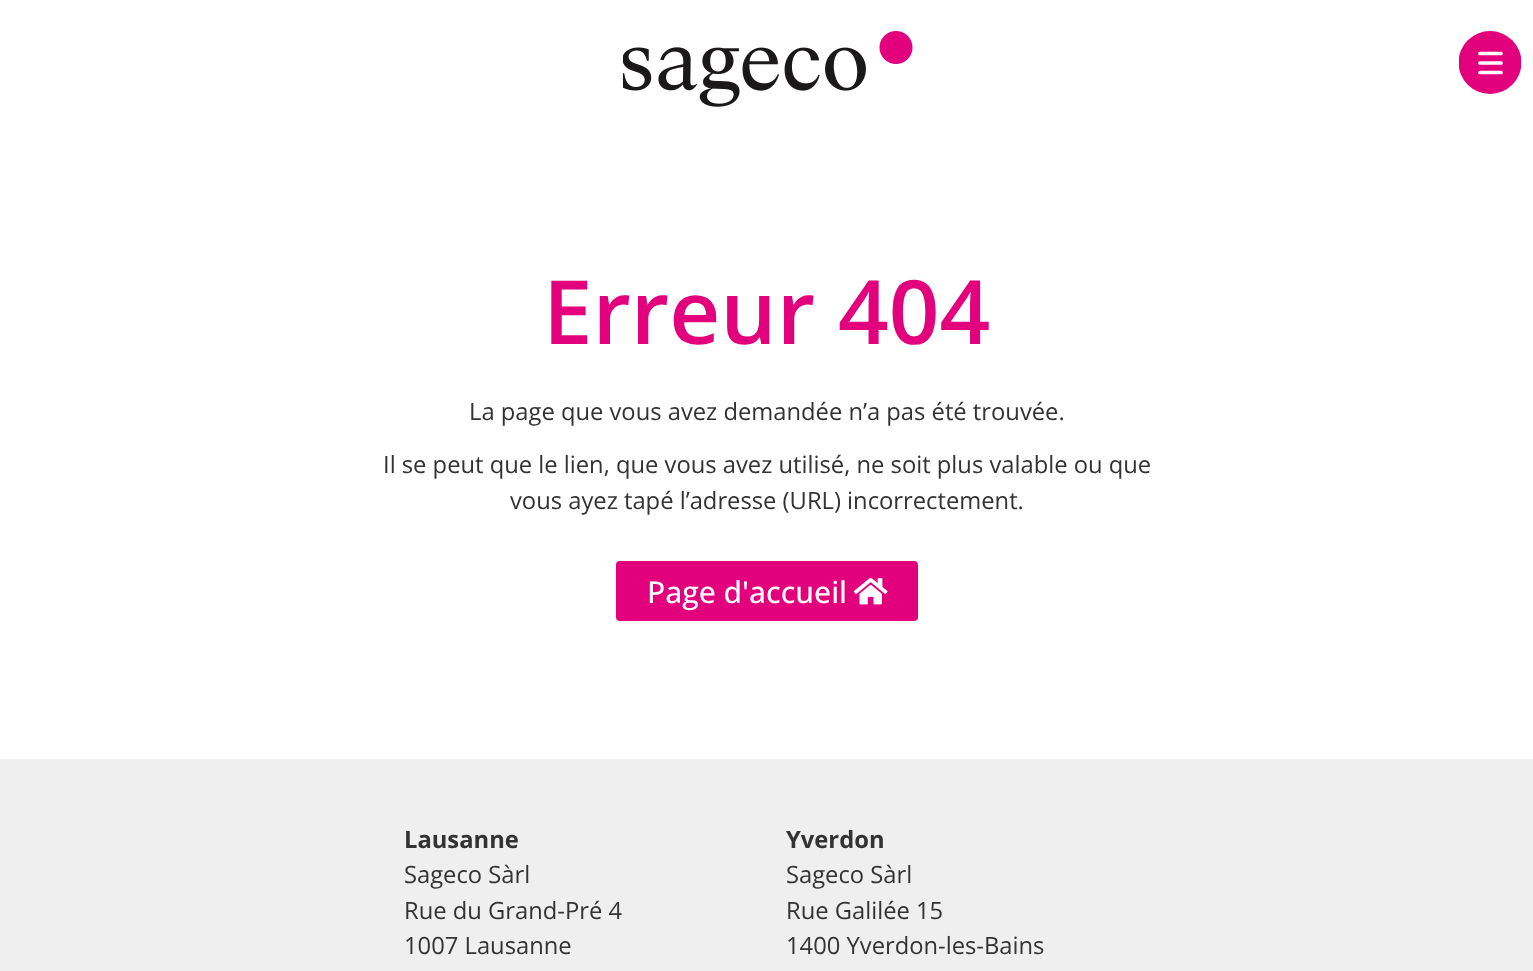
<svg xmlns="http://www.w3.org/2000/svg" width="1533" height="971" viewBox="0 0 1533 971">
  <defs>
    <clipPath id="clip1"><rect x="1459" y="31" width="62" height="63"/></clipPath>
  </defs>
  <rect width="100%" height="100%" fill="#ffffff"/>
  <image x="623" y="31" width="290" height="76" href="img1.png"/>
  <g clip-path="url(#clip1)">
    <circle cx="1490" cy="62.5" r="31.5" fill="#e2007d"/>
  </g>
  <path d="M1480 53.5H1501M1480 63H1501M1480 72.5H1501" fill="none" stroke="#ffffff" stroke-width="3.7" stroke-linecap="round"/>
  <text x="543" y="344" font-family="Open Sans" font-size="88.75" font-weight="600" fill="#e2007d">Erreur 404</text>
  <text x="469" y="420" font-family="Open Sans" font-size="23.75" fill="#333333">La page que vous avez demandée n’a pas été trouvée.</text>
  <text x="383" y="473" font-family="Open Sans" font-size="23.75" fill="#333333">Il se peut que le lien, que vous avez utilisé, ne soit plus valable ou que</text>
  <text x="510" y="509" font-family="Open Sans" font-size="23.75" fill="#333333">vous ayez tapé l’adresse (URL) incorrectement.</text>
  <rect x="616" y="561" width="302" height="60" rx="4" fill="#e2007d"/>
  <text x="647" y="603" font-family="Open Sans" font-size="30" font-weight="500" fill="#ffffff">Page d'accueil</text>
  <image x="853" y="578" width="35" height="27" href="img2.png"/>
  <rect x="0" y="759" width="1533" height="212" fill="#efefef"/>
  <text x="404" y="848" font-family="Open Sans" font-size="23.75" font-weight="bold" fill="#333333">Lausanne</text>
  <text x="404" y="883" font-family="Open Sans" font-size="23.75" fill="#333333">Sageco Sàrl</text>
  <text x="404" y="919" font-family="Open Sans" font-size="23.75" fill="#333333">Rue du Grand-Pré 4</text>
  <text x="404" y="954" font-family="Open Sans" font-size="23.75" fill="#333333">1007 Lausanne</text>
  <text x="786" y="848" font-family="Open Sans" font-size="23.75" font-weight="bold" fill="#333333">Yverdon</text>
  <text x="786" y="883" font-family="Open Sans" font-size="23.75" fill="#333333">Sageco Sàrl</text>
  <text x="786" y="919" font-family="Open Sans" font-size="23.75" fill="#333333">Rue Galilée 15</text>
  <text x="786" y="954" font-family="Open Sans" font-size="23.75" fill="#333333">1400 Yverdon-les-Bains</text>
</svg>
